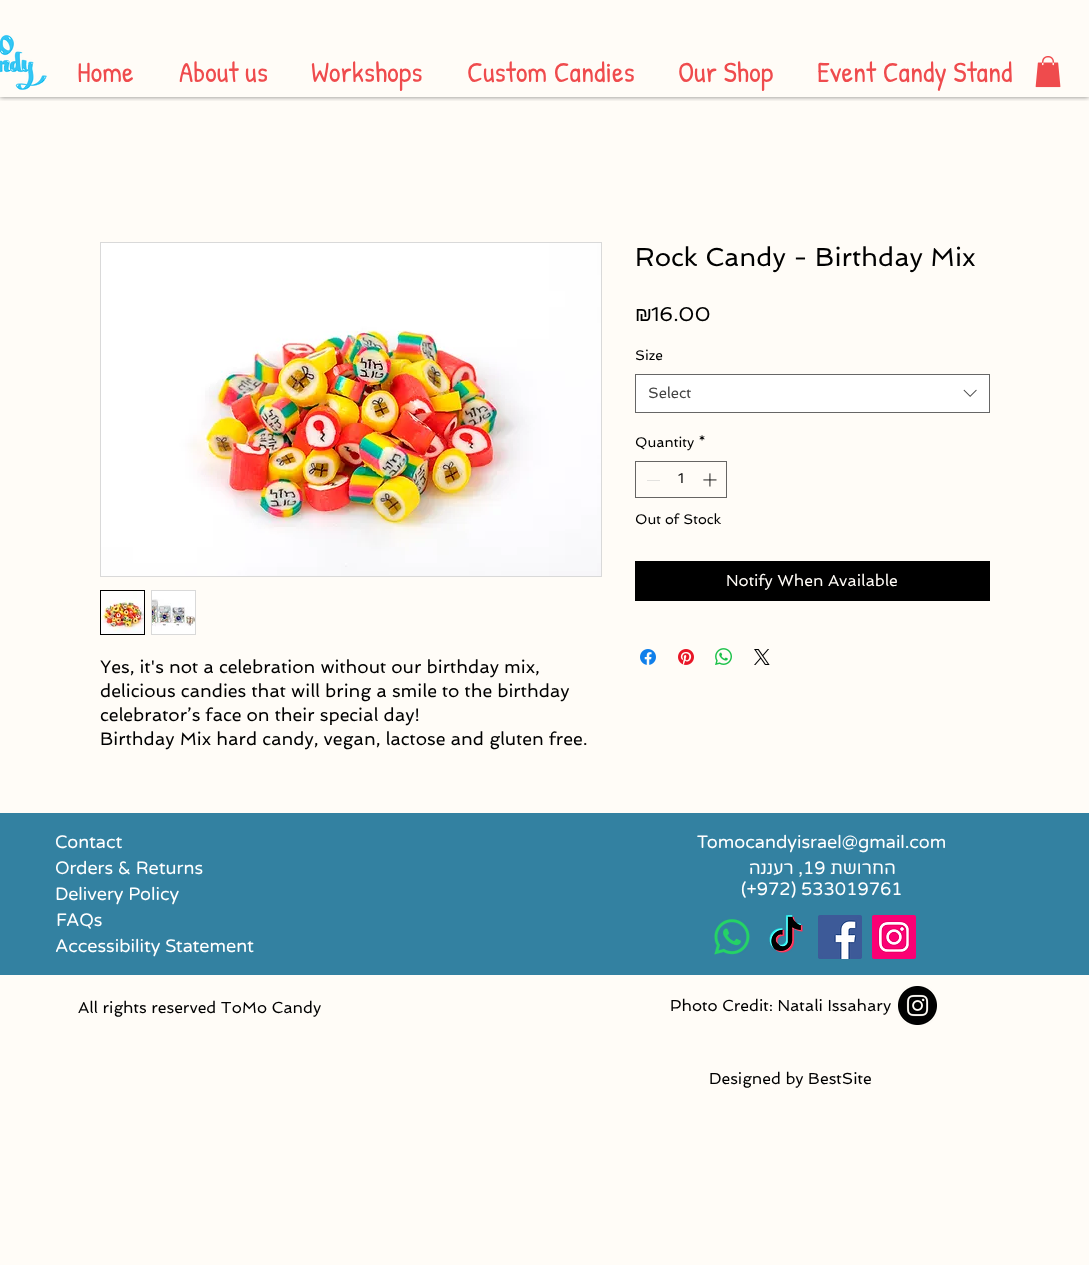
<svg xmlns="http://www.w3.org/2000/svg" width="1089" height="1265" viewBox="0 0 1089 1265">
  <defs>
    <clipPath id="clip1"><rect x="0" y="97" width="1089" height="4"/></clipPath>
    <filter id="blur1" x="-50%" y="-200%" width="200%" height="500%"><feGaussianBlur stdDeviation="2.5"/></filter>
  </defs>
  <rect width="100%" height="100%" fill="#fffcf7"/>
  <g clip-path="url(#clip1)">
    <rect x="0" y="0" width="1089" height="97" fill="#000000" fill-opacity="0.5" filter="url(#blur1)"/>
  </g>
  <image x="0" y="34" width="47" height="56" href="img1.png"/>
  <text x="77" y="82" font-family="Patrick Hand" font-size="29" fill="#ef4b4d">Home</text>
  <text x="179" y="82" font-family="Patrick Hand" font-size="29" fill="#ef4b4d">About us</text>
  <text x="311" y="82" font-family="Patrick Hand" font-size="29" fill="#ef4b4d">Workshops</text>
  <text x="467" y="82" font-family="Patrick Hand" font-size="29" fill="#ef4b4d">Custom Candies</text>
  <text x="678" y="82" font-family="Patrick Hand" font-size="29" fill="#ef4b4d">Our Shop</text>
  <text x="817" y="82" font-family="Patrick Hand" font-size="29" fill="#ef4b4d">Event Candy Stand</text>
  <image x="1035" y="56" width="26" height="32" href="img2.png"/>
  <text x="635" y="266" font-family="Spinnaker" font-size="26" fill="#000000">Rock Candy - Birthday Mix</text>
  <text x="635" y="321" font-family="Liberation Sans" font-size="20" fill="#000000">₪</text>
  <text x="651" y="321" font-family="Spinnaker" font-size="20" fill="#000000">16.00</text>
  <text x="635" y="360" font-family="Spinnaker" font-size="14" fill="#000000">Size</text>
  <rect x="635.5" y="374.5" width="354" height="38" fill="#ffffff" stroke="#666666"/>
  <text x="648" y="398" font-family="Spinnaker" font-size="15" fill="#444444">Select</text>
  <image x="963" y="389" width="14" height="8" href="img3.png"/>
  <text x="635" y="447" font-family="Spinnaker" font-size="14" fill="#000000">Quantity *</text>
  <rect x="635.5" y="461.5" width="91" height="36" fill="none" stroke="#666563"/>
  <rect x="647" y="480" width="13" height="1" fill="#e3e2df"/>
  <text x="678" y="483" font-family="Spinnaker" font-size="14" fill="#000000">1</text>
  <image x="703" y="473" width="14" height="14" href="img4.png"/>
  <text x="635" y="524" font-family="Spinnaker" font-size="14" fill="#000000">Out of Stock</text>
  <rect x="635" y="561" width="355" height="40" fill="#000000"/>
  <text x="726" y="586" font-family="Spinnaker" font-size="16" fill="#fffcf7">Notify When Available</text>
  <image x="640" y="649" width="16" height="16" href="img5.png"/>
  <image x="678" y="649" width="16" height="16" href="img6.png"/>
  <image x="715" y="648" width="17" height="17" href="img7.png"/>
  <image x="754" y="649" width="16" height="16" href="img8.png"/>
  <rect x="100.5" y="242.5" width="501" height="334" fill="none" stroke="#d9d9d9"/>
  <image x="101" y="243" width="500" height="333" href="img9.png"/>
  <rect x="100.5" y="590.5" width="44" height="44" fill="none" stroke="#000000"/>
  <image x="101" y="591" width="43" height="43" href="img10.png"/>
  <rect x="151.5" y="590.5" width="44" height="44" fill="none" stroke="#d9d9d9"/>
  <image x="152" y="591" width="43" height="43" href="img11.png"/>
  <text x="100" y="673" font-family="Spinnaker" font-size="18" fill="#000000">Yes, it's not a celebration without our birthday mix,</text>
  <text x="100" y="697" font-family="Spinnaker" font-size="18" fill="#000000">delicious candies that will bring a smile to the birthday</text>
  <text x="100" y="721" font-family="Spinnaker" font-size="18" fill="#000000">celebrator’s face on their special day!</text>
  <text x="100" y="745" font-family="Spinnaker" font-size="18" fill="#000000">Birthday Mix hard candy, vegan, lactose and gluten free.</text>
  <rect x="0" y="813" width="1089" height="162" fill="#3381a1"/>
  <text x="55" y="848" font-family="Varela Round" font-size="18" fill="#ffffff">Contact</text>
  <text x="697" y="848" font-family="Varela Round" font-size="18" fill="#ffffff">Tomocandyisrael@gmail.com</text>
  <text x="55" y="874" font-family="Varela Round" font-size="18" fill="#ffffff">Orders &amp; Returns</text>
  <text x="803" y="874" font-family="Varela Round" font-size="18" direction="rtl" fill="#ffffff">, רעננה</text>
  <text x="803" y="874" font-family="Varela Round" font-size="18" fill="#ffffff">19</text>
  <text x="896" y="874" font-family="Varela Round" font-size="18" direction="rtl" fill="#ffffff">החרושת</text>
  <text x="55" y="900" font-family="Varela Round" font-size="18" fill="#ffffff">Delivery Policy</text>
  <text x="741" y="895" font-family="Varela Round" font-size="18" fill="#ffffff">(+972) 533019761</text>
  <text x="56" y="926" font-family="Varela Round" font-size="18" fill="#ffffff">FAQs</text>
  <image x="714" y="919" width="36" height="36" href="img12.png"/>
  <image x="769" y="915" width="34" height="38" href="img13.png"/>
  <image x="818" y="915" width="44" height="44" href="img14.png"/>
  <image x="872" y="915" width="44" height="44" href="img15.png"/>
  <text x="55" y="952" font-family="Varela Round" font-size="18" fill="#ffffff">Accessibility Statement</text>
  <text x="78" y="1013" font-family="Spinnaker" font-size="16" fill="#000000">All rights reserved ToMo Candy</text>
  <text x="670" y="1011" font-family="Spinnaker" font-size="16" fill="#000000">Photo Credit: Natali Issahary</text>
  <image x="898" y="986" width="39" height="39" href="img16.png"/>
  <text x="709" y="1084" font-family="Spinnaker" font-size="16" fill="#000000">Designed by BestSite</text>
</svg>
